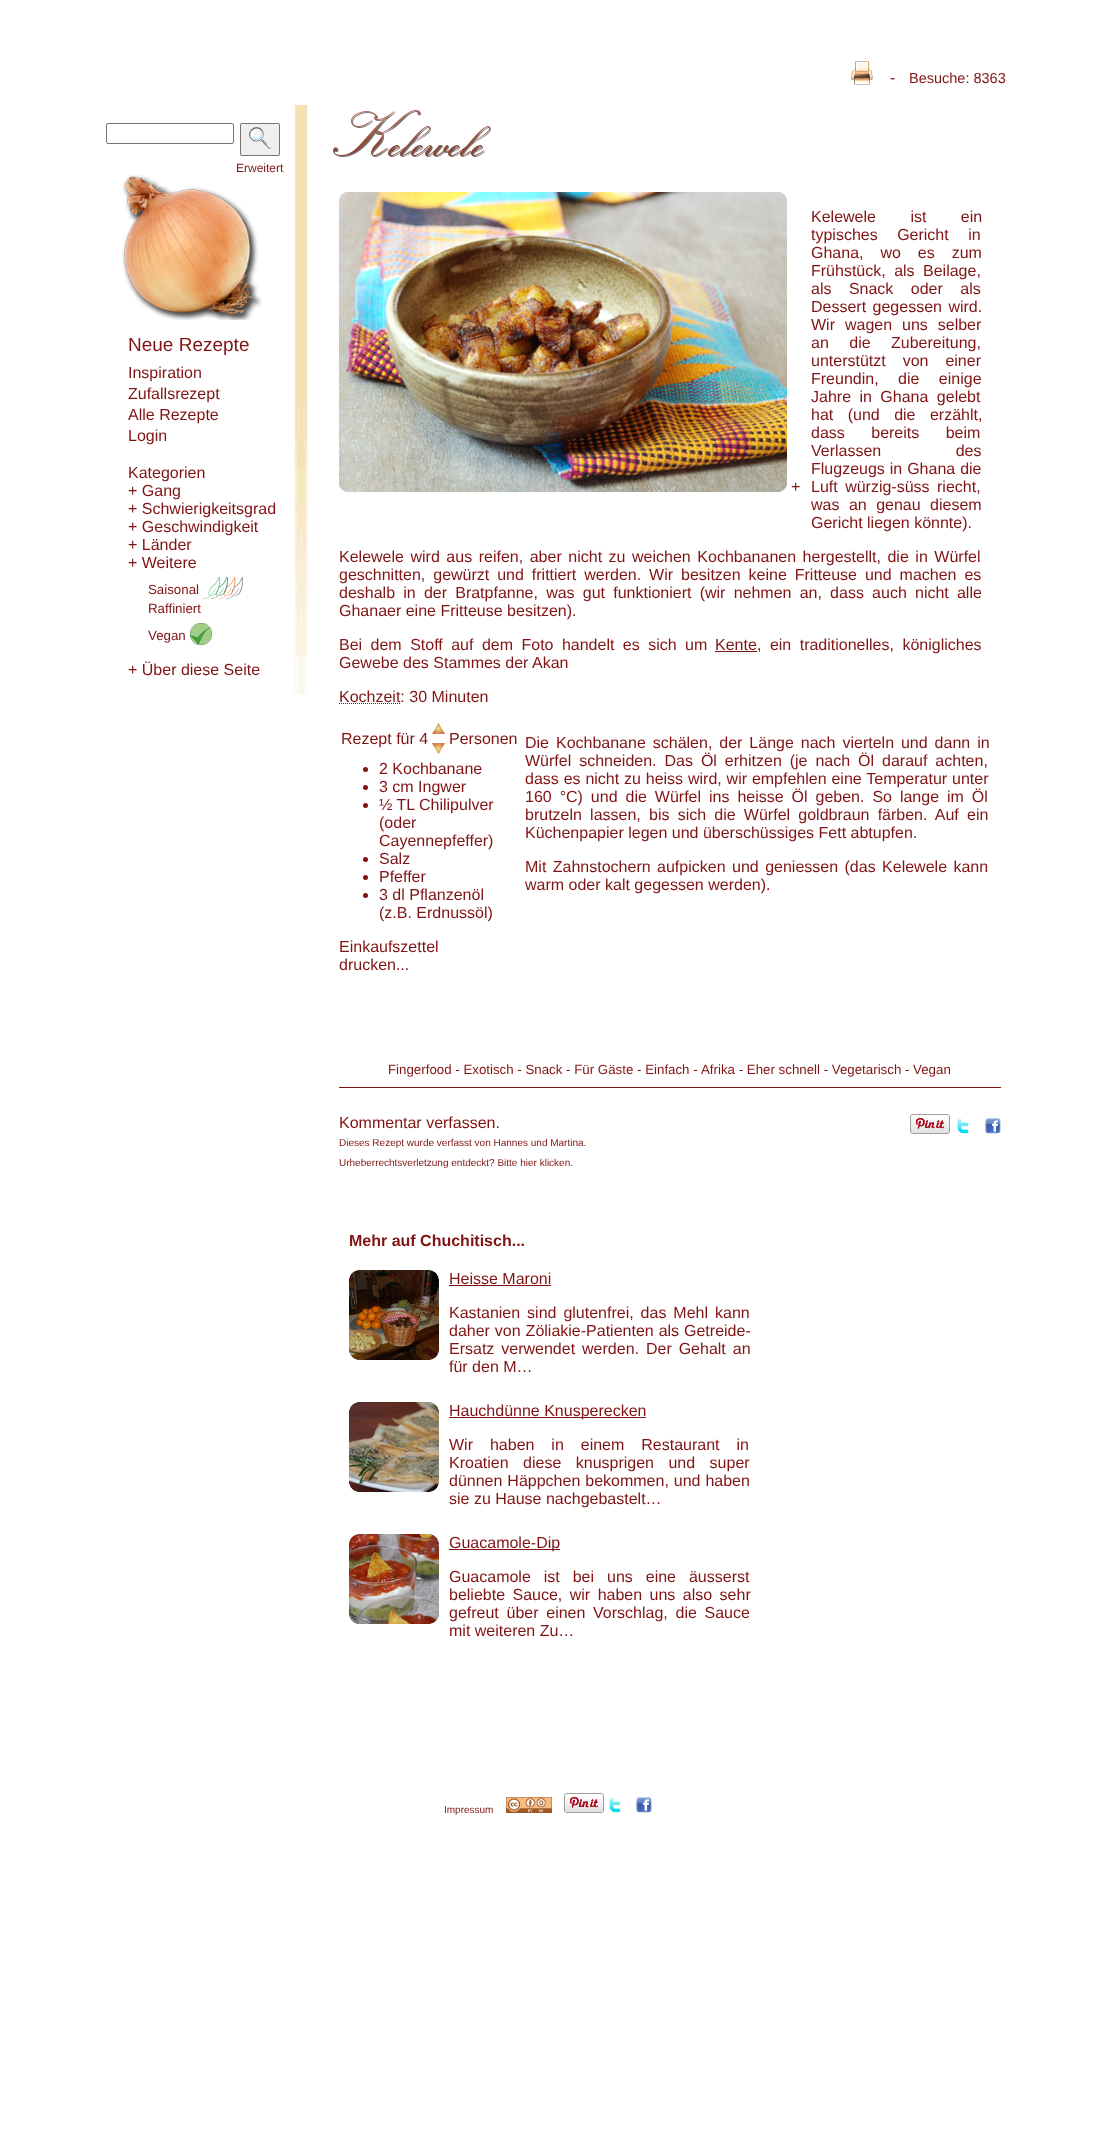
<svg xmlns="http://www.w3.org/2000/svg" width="1095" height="2131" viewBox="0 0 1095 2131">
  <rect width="100%" height="100%" fill="#ffffff"/>
  <image x="851" y="61" width="22" height="24" href="img1.png"/>
  <text x="890" y="83" font-family="Liberation Sans" font-size="16" fill="#801313">-</text>
  <text x="909" y="83" font-family="Liberation Sans" font-size="14.5" fill="#801313">Besuche: 8363</text>
  <image x="294" y="105" width="14" height="590" href="img2.png"/>
  <rect x="106.5" y="123.5" width="127" height="20" rx="1.5" fill="none" stroke="#767676"/>
  <rect x="240.5" y="123.5" width="39" height="32" rx="1.5" fill="#efefef" stroke="#767676"/>
  <image x="249" y="126" width="22" height="23" href="img3.png"/>
  <text x="236" y="172" font-family="Liberation Sans" font-size="12" fill="#801313">Erweitert</text>
  <image x="122" y="175" width="140" height="145" href="img4.png"/>
  <text x="128" y="351" font-family="Liberation Sans" font-size="19" fill="#801313">Neue Rezepte</text>
  <text x="128" y="378" font-family="Liberation Sans" font-size="16" fill="#801313">Inspiration</text>
  <text x="128" y="399" font-family="Liberation Sans" font-size="16" fill="#801313">Zufallsrezept</text>
  <text x="128" y="420" font-family="Liberation Sans" font-size="16" fill="#801313">Alle Rezepte</text>
  <text x="128" y="441" font-family="Liberation Sans" font-size="16" fill="#801313">Login</text>
  <text x="128" y="478" font-family="Liberation Sans" font-size="16" fill="#801313">Kategorien</text>
  <text x="128" y="496" font-family="Liberation Sans" font-size="16" fill="#801313">+ Gang</text>
  <text x="128" y="514" font-family="Liberation Sans" font-size="16" fill="#801313">+ Schwierigkeitsgrad</text>
  <text x="128" y="532" font-family="Liberation Sans" font-size="16" fill="#801313">+ Geschwindigkeit</text>
  <text x="128" y="550" font-family="Liberation Sans" font-size="16" fill="#801313">+ Länder</text>
  <text x="128" y="568" font-family="Liberation Sans" font-size="16" fill="#801313">+ Weitere</text>
  <text x="148" y="594" font-family="Liberation Sans" font-size="13.3" fill="#801313">Saisonal</text>
  <image x="203" y="577" width="40" height="22" href="img5.png"/>
  <text x="148" y="613" font-family="Liberation Sans" font-size="13.3" fill="#801313">Raffiniert</text>
  <text x="148" y="640" font-family="Liberation Sans" font-size="13.3" fill="#801313">Vegan</text>
  <image x="190" y="623" width="22" height="22" href="img6.png"/>
  <text x="128" y="675" font-family="Liberation Sans" font-size="16" fill="#801313">+ Über diese Seite</text>
  <image x="333" y="110" width="158" height="47" href="img7.png"/>
  <text x="811" y="222" word-spacing="30" font-family="Liberation Sans" font-size="16" fill="#801313">Kelewele ist ein</text>
  <text x="811" y="240" word-spacing="15" font-family="Liberation Sans" font-size="16" fill="#801313">typisches Gericht in</text>
  <text x="811" y="258" word-spacing="12.5" font-family="Liberation Sans" font-size="16" fill="#801313">Ghana, wo es zum</text>
  <text x="811" y="276" word-spacing="4" font-family="Liberation Sans" font-size="16" fill="#801313">Frühstück, als Beilage,</text>
  <text x="811" y="294" word-spacing="13" font-family="Liberation Sans" font-size="16" fill="#801313">als Snack oder als</text>
  <text x="811" y="312" word-spacing="2" font-family="Liberation Sans" font-size="16" fill="#801313">Dessert gegessen wird.</text>
  <text x="811" y="330" word-spacing="5.5" font-family="Liberation Sans" font-size="16" fill="#801313">Wir wagen uns selber</text>
  <text x="811" y="348" word-spacing="16" font-family="Liberation Sans" font-size="16" fill="#801313">an die Zubereitung,</text>
  <text x="811" y="366" word-spacing="12.5" font-family="Liberation Sans" font-size="16" fill="#801313">unterstützt von einer</text>
  <text x="811" y="384" word-spacing="15" font-family="Liberation Sans" font-size="16" fill="#801313">Freundin, die einige</text>
  <text x="811" y="402" word-spacing="4" font-family="Liberation Sans" font-size="16" fill="#801313">Jahre in Ghana gelebt</text>
  <text x="811" y="420" word-spacing="10" font-family="Liberation Sans" font-size="16" fill="#801313">hat (und die erzählt,</text>
  <text x="811" y="438" word-spacing="22" font-family="Liberation Sans" font-size="16" fill="#801313">dass bereits beim</text>
  <text x="811" y="456" word-spacing="70" font-family="Liberation Sans" font-size="16" fill="#801313">Verlassen des</text>
  <text x="811" y="474" word-spacing="0.5" font-family="Liberation Sans" font-size="16" fill="#801313">Flugzeugs in Ghana die</text>
  <text x="811" y="492" word-spacing="3" font-family="Liberation Sans" font-size="16" fill="#801313">Luft würzig-süss riecht,</text>
  <text x="811" y="510" word-spacing="5" font-family="Liberation Sans" font-size="16" fill="#801313">was an genau diesem</text>
  <text x="811" y="528" font-family="Liberation Sans" font-size="16" fill="#801313">Gericht liegen könnte).</text>
  <text x="339" y="562" word-spacing="2.1" font-family="Liberation Sans" font-size="16" fill="#801313">Kelewele wird aus reifen, aber nicht zu weichen Kochbananen hergestellt, die in Würfel</text>
  <text x="339" y="580" word-spacing="3.5" font-family="Liberation Sans" font-size="16" fill="#801313">geschnitten, gewürzt und frittiert werden. Wir besitzen keine Fritteuse und machen es</text>
  <text x="339" y="598" word-spacing="3.75" font-family="Liberation Sans" font-size="16" fill="#801313">deshalb in der Bratpfanne, was gut funktioniert (wir nehmen an, dass auch nicht alle</text>
  <text x="339" y="616" font-family="Liberation Sans" font-size="16" fill="#801313">Ghanaer eine Fritteuse besitzen).</text>
  <text x="339" y="650" word-spacing="4" font-family="Liberation Sans" font-size="16" fill="#801313">Bei dem Stoff auf dem Foto handelt es sich um</text>
  <text x="715" y="650" font-family="Liberation Sans" font-size="16" fill="#801313">Kente</text>
  <rect x="715" y="651" width="42" height="1" fill="#801313"/>
  <text x="757" y="650" word-spacing="4" font-family="Liberation Sans" font-size="16" fill="#801313">, ein traditionelles, königliches</text>
  <text x="339" y="668" font-family="Liberation Sans" font-size="16" fill="#801313">Gewebe des Stammes der Akan</text>
  <image x="339" y="192" width="448" height="300" href="img8.png"/>
  <text x="791" y="492" font-family="Liberation Sans" font-size="16" fill="#801313">+</text>
  <text x="339" y="702" font-family="Liberation Sans" font-size="16" fill="#801313">Kochzeit: 30 Minuten</text>
  <path d="M339 703.5H400.5" fill="none" stroke="#801313" stroke-dasharray="1 1"/>
  <image x="432" y="723" width="13" height="11" href="img9.png"/>
  <text x="341" y="744" font-family="Liberation Sans" font-size="16" fill="#801313">Rezept für 4</text>
  <text x="449" y="744" font-family="Liberation Sans" font-size="16" fill="#801313">Personen</text>
  <image x="432" y="743" width="13" height="11" href="img10.png"/>
  <circle cx="365.5" cy="769.5" r="2.5" fill="#801313"/>
  <text x="379" y="774" font-family="Liberation Sans" font-size="16" fill="#801313">2 Kochbanane</text>
  <circle cx="365.5" cy="787.5" r="2.5" fill="#801313"/>
  <text x="379" y="792" font-family="Liberation Sans" font-size="16" fill="#801313">3 cm Ingwer</text>
  <circle cx="365.5" cy="805.5" r="2.5" fill="#801313"/>
  <text x="379" y="810" font-family="Liberation Sans" font-size="16" fill="#801313">½ TL</text>
  <text x="419" y="810" font-family="Liberation Sans" font-size="16" fill="#801313">Chilipulver</text>
  <text x="379" y="828" font-family="Liberation Sans" font-size="16" fill="#801313">(oder</text>
  <text x="379" y="846" font-family="Liberation Sans" font-size="16" fill="#801313">Cayennepfeffer)</text>
  <circle cx="365.5" cy="859.5" r="2.5" fill="#801313"/>
  <text x="379" y="864" font-family="Liberation Sans" font-size="16" fill="#801313">Salz</text>
  <circle cx="365.5" cy="877.5" r="2.5" fill="#801313"/>
  <text x="379" y="882" font-family="Liberation Sans" font-size="16" fill="#801313">Pfeffer</text>
  <circle cx="365.5" cy="895.5" r="2.5" fill="#801313"/>
  <text x="379" y="900" font-family="Liberation Sans" font-size="16" fill="#801313">3 dl Pflanzenöl</text>
  <text x="379" y="918" font-family="Liberation Sans" font-size="16" fill="#801313">(z.B. Erdnussöl)</text>
  <text x="339" y="952" font-family="Liberation Sans" font-size="16" fill="#801313">Einkaufszettel</text>
  <text x="339" y="970" font-family="Liberation Sans" font-size="16" fill="#801313">drucken...</text>
  <text x="525" y="748" word-spacing="2.5" font-family="Liberation Sans" font-size="16" fill="#801313">Die Kochbanane schälen, der Länge nach vierteln und dann in</text>
  <text x="525" y="766" word-spacing="3.5" font-family="Liberation Sans" font-size="16" fill="#801313">Würfel schneiden. Das Öl erhitzen (je nach Öl darauf achten,</text>
  <text x="525" y="784" word-spacing="0.4" font-family="Liberation Sans" font-size="16" fill="#801313">dass es nicht zu heiss wird, wir empfehlen eine Temperatur unter</text>
  <text x="525" y="802" word-spacing="3.5" font-family="Liberation Sans" font-size="16" fill="#801313">160 °C) und die Würfel ins heisse Öl geben. So lange im Öl</text>
  <text x="525" y="820" word-spacing="3.75" font-family="Liberation Sans" font-size="16" fill="#801313">brutzeln lassen, bis sich die Würfel goldbraun färben. Auf ein</text>
  <text x="525" y="838" font-family="Liberation Sans" font-size="16" fill="#801313">Küchenpapier legen und überschüssiges Fett abtupfen.</text>
  <text x="525" y="872" word-spacing="2" font-family="Liberation Sans" font-size="16" fill="#801313">Mit Zahnstochern aufpicken und geniessen (das Kelewele kann</text>
  <text x="525" y="890" font-family="Liberation Sans" font-size="16" fill="#801313">warm oder kalt gegessen werden).</text>
  <text x="388" y="1074" font-family="Liberation Sans" font-size="13.3" fill="#801313">Fingerfood - Exotisch - Snack - Für Gäste - Einfach -</text>
  <text x="701" y="1074" font-family="Liberation Sans" font-size="13.3" fill="#801313">Afrika - Eher schnell - Vegetarisch - Vegan</text>
  <rect x="339" y="1087" width="662" height="1" fill="#801313"/>
  <text x="339" y="1128" font-family="Liberation Sans" font-size="16" fill="#801313">Kommentar verfassen.</text>
  <image x="910" y="1114" width="40" height="20" href="img11.png"/>
  <image x="957" y="1118" width="12" height="16" href="img12.png"/>
  <image x="985" y="1118" width="16" height="16" href="img13.png"/>
  <text x="339" y="1146" font-family="Liberation Sans" font-size="10" fill="#801313">Dieses Rezept wurde verfasst von Hannes und Martina.</text>
  <text x="339" y="1166" font-family="Liberation Sans" font-size="10" fill="#801313">Urheberrechtsverletzung entdeckt? Bitte hier klicken.</text>
  <text x="349" y="1246" font-family="Liberation Sans" font-size="16" font-weight="bold" fill="#801313">Mehr auf Chuchitisch...</text>
  <image x="349" y="1270" width="90" height="90" href="img14.png"/>
  <text x="449" y="1284" font-family="Liberation Sans" font-size="16" fill="#801313">Heisse Maroni</text>
  <rect x="449" y="1285" width="102" height="1" fill="#801313"/>
  <text x="449" y="1318" word-spacing="2.5" font-family="Liberation Sans" font-size="16" fill="#801313">Kastanien sind glutenfrei, das Mehl kann</text>
  <text x="449" y="1336" word-spacing="0.5" font-family="Liberation Sans" font-size="16" fill="#801313">daher von Zöliakie-Patienten als Getreide-</text>
  <text x="449" y="1354" word-spacing="2.5" font-family="Liberation Sans" font-size="16" fill="#801313">Ersatz verwendet werden. Der Gehalt an</text>
  <text x="449" y="1372" font-family="Liberation Sans" font-size="16" fill="#801313">für den M…</text>
  <image x="349" y="1402" width="90" height="90" href="img15.png"/>
  <rect x="449" y="1417" width="197" height="1" fill="#801313"/>
  <text x="449" y="1416" font-family="Liberation Sans" font-size="16" fill="#801313">Hauchdünne Knusperecken</text>
  <text x="449" y="1450" word-spacing="12.5" font-family="Liberation Sans" font-size="16" fill="#801313">Wir haben in einem Restaurant in</text>
  <text x="449" y="1468" word-spacing="10" font-family="Liberation Sans" font-size="16" fill="#801313">Kroatien diese knusprigen und super</text>
  <text x="449" y="1486" word-spacing="0.5" font-family="Liberation Sans" font-size="16" fill="#801313">dünnen Häppchen bekommen, und haben</text>
  <text x="449" y="1504" font-family="Liberation Sans" font-size="16" fill="#801313">sie zu Hause nachgebastelt…</text>
  <image x="349" y="1534" width="90" height="90" href="img16.png"/>
  <rect x="449" y="1549" width="111" height="1" fill="#801313"/>
  <text x="449" y="1548" font-family="Liberation Sans" font-size="16" fill="#801313">Guacamole-Dip</text>
  <text x="449" y="1582" word-spacing="8.5" font-family="Liberation Sans" font-size="16" fill="#801313">Guacamole ist bei uns eine äusserst</text>
  <text x="449" y="1600" word-spacing="3" font-family="Liberation Sans" font-size="16" fill="#801313">beliebte Sauce, wir haben uns also sehr</text>
  <text x="449" y="1618" word-spacing="3.25" font-family="Liberation Sans" font-size="16" fill="#801313">gefreut über einen Vorschlag, die Sauce</text>
  <text x="449" y="1636" font-family="Liberation Sans" font-size="16" fill="#801313">mit weiteren Zu…</text>
  <text x="444" y="1813" font-family="Liberation Sans" font-size="10" fill="#801313">Impressum</text>
  <image x="506" y="1797" width="46" height="16" href="img17.png"/>
  <image x="564" y="1793" width="40" height="20" href="img11.png"/>
  <image x="609" y="1797" width="12" height="16" href="img12.png"/>
  <image x="636" y="1797" width="16" height="16" href="img13.png"/>
</svg>
